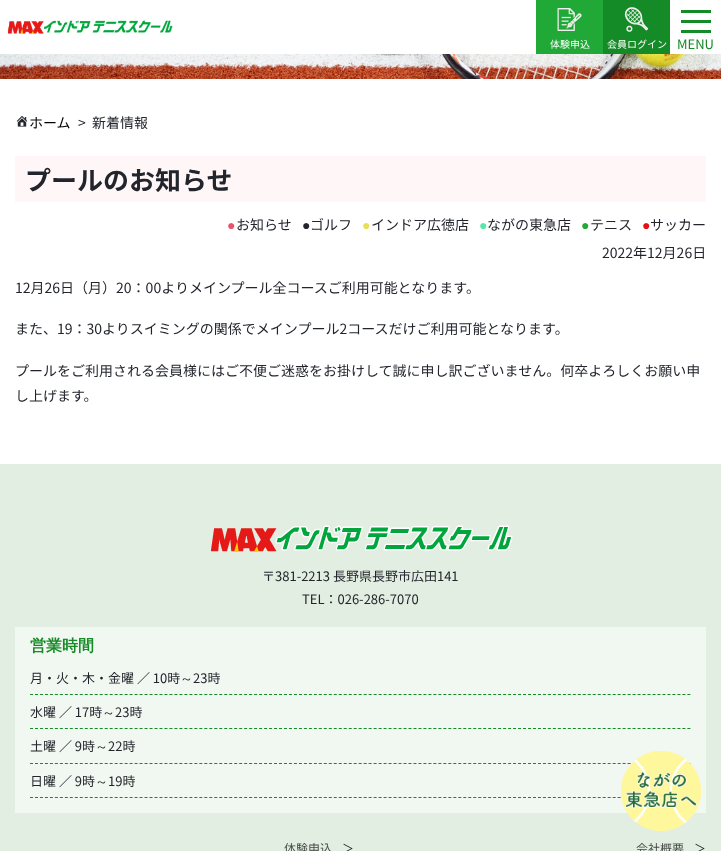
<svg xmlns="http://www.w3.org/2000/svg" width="721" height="851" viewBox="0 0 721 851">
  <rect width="100%" height="100%" fill="#ffffff"/>
  <image x="7" y="20" width="166" height="14" href="img1.png"/>
  <rect x="536" y="0" width="67" height="54" fill="#21a937"/>
  <image x="557" y="8" width="25" height="23" href="img2.png"/>
  <text x="550" y="48" font-family="Noto Sans JP" font-size="10" fill="#ffffff">体験申込</text>
  <rect x="603" y="0" width="67" height="54" fill="#158b28"/>
  <image x="624" y="7" width="25" height="25" href="img3.png"/>
  <text x="607" y="48" font-family="Noto Sans JP" font-size="10" fill="#ffffff">会員ログイン</text>
  <rect x="681" y="10" width="30" height="3" fill="#158b28"/>
  <rect x="681" y="20" width="30" height="3" fill="#158b28"/>
  <rect x="681" y="30" width="30" height="3" fill="#158b28"/>
  <text x="677" y="49" font-family="Noto Sans JP" font-size="13" fill="#158b28">MENU</text>
  <image x="0" y="54" width="721" height="25" href="img4.png"/>
  <image x="16" y="115" width="12" height="12" href="img5.png"/>
  <text x="29" y="128" font-family="Noto Sans JP" font-size="14" fill="#000000">ホーム</text>
  <text x="78" y="128" font-family="Noto Sans JP" font-size="14" fill="#22252c">&gt;</text>
  <text x="92" y="128" font-family="Noto Sans JP" font-size="14" fill="#22252c">新着情報</text>
  <rect x="15" y="156" width="691" height="46" fill="#fff7f7"/>
  <text x="25" y="190" font-family="Noto Sans JP" font-size="26" font-weight="bold" fill="#22252c">プールのお知らせ</text>
  <text x="227" y="230" font-family="Liberation Sans" font-size="14" fill="#e9546b">●</text>
  <text x="236" y="230" font-family="Noto Sans JP" font-size="14" fill="#22252c">お知らせ</text>
  <text x="302" y="230" font-family="Liberation Sans" font-size="14" fill="#22252c">●</text>
  <text x="310" y="230" font-family="Noto Sans JP" font-size="14" fill="#22252c">ゴルフ</text>
  <text x="362" y="230" font-family="Liberation Sans" font-size="14" fill="#e9df54">●</text>
  <text x="371" y="230" font-family="Noto Sans JP" font-size="14" fill="#22252c">インドア広徳店</text>
  <text x="479" y="230" font-family="Liberation Sans" font-size="14" fill="#54e9a8">●</text>
  <text x="487" y="230" font-family="Noto Sans JP" font-size="14" fill="#22252c">ながの東急店</text>
  <text x="581" y="230" font-family="Liberation Sans" font-size="14" fill="#21a937">●</text>
  <text x="590" y="230" font-family="Noto Sans JP" font-size="14" fill="#22252c">テニス</text>
  <text x="642" y="230" font-family="Liberation Sans" font-size="14" fill="#e61018">●</text>
  <text x="650" y="230" font-family="Noto Sans JP" font-size="14" fill="#22252c">サッカー</text>
  <text x="602" y="258" font-family="Noto Sans JP" font-size="14" fill="#22252c">2022年12月26日</text>
  <text x="15" y="293" font-family="Noto Sans JP" font-size="14" fill="#22252c">12月26日（月）20：00よりメインプール全コースご利用可能となります。</text>
  <text x="15" y="334" font-family="Noto Sans JP" font-size="14" fill="#22252c">また、19：30よりスイミングの関係でメインプール2コースだけご利用可能となります。</text>
  <text x="15" y="376" font-family="Noto Sans JP" font-size="14" fill="#22252c">プールをご利用される会員様にはご不便ご迷惑をお掛けして誠に申し訳ございません。何卒よろしくお願い申</text>
  <text x="15" y="401" font-family="Noto Sans JP" font-size="14" fill="#22252c">し上げます。</text>
  <rect x="0" y="464" width="721" height="387" fill="#e2eee2"/>
  <image x="211" y="525" width="302" height="27" href="img6.png"/>
  <text x="262" y="581" font-family="Noto Sans JP" font-size="13" fill="#22252c">〒381-2213 長野県長野市広田141</text>
  <text x="302" y="604" font-family="Noto Sans JP" font-size="13" fill="#22252c">TEL：026-286-7070</text>
  <rect x="15" y="627" width="691" height="186" fill="#f1f7f1"/>
  <text x="30" y="651" font-family="WenQuanYi Zen Hei" font-size="16" font-weight="bold" fill="#158b28">営業時間</text>
  <path d="M30 694.5H691" fill="none" stroke="#158b28" stroke-dasharray="3 1.98"/>
  <text x="30" y="683" font-family="Noto Sans JP" font-size="13" fill="#22252c">月・火・木・金曜 ／ 10時</text>
  <text x="180" y="683" font-family="WenQuanYi Zen Hei" font-size="13" font-weight="500" fill="#22252c">～</text>
  <text x="193" y="683" font-family="Noto Sans JP" font-size="13" fill="#22252c">23時</text>
  <path d="M30 728.5H691" fill="none" stroke="#158b28" stroke-dasharray="3 1.98"/>
  <text x="30" y="717" font-family="Noto Sans JP" font-size="13" fill="#22252c">水曜 ／ 17時</text>
  <text x="102" y="717" font-family="WenQuanYi Zen Hei" font-size="13" font-weight="500" fill="#22252c">～</text>
  <text x="115" y="717" font-family="Noto Sans JP" font-size="13" fill="#22252c">23時</text>
  <path d="M30 763.5H691" fill="none" stroke="#158b28" stroke-dasharray="3 1.98"/>
  <text x="30" y="751" font-family="Noto Sans JP" font-size="13" fill="#22252c">土曜 ／ 9時</text>
  <text x="95" y="751" font-family="WenQuanYi Zen Hei" font-size="13" font-weight="500" fill="#22252c">～</text>
  <text x="108" y="751" font-family="Noto Sans JP" font-size="13" fill="#22252c">22時</text>
  <path d="M30 797.5H691" fill="none" stroke="#158b28" stroke-dasharray="3 1.98"/>
  <text x="30" y="786" font-family="Noto Sans JP" font-size="13" fill="#22252c">日曜 ／ 9時</text>
  <text x="95" y="786" font-family="WenQuanYi Zen Hei" font-size="13" font-weight="500" fill="#22252c">～</text>
  <text x="108" y="786" font-family="Noto Sans JP" font-size="13" fill="#22252c">19時</text>
  <text x="284" y="853" font-family="Noto Sans JP" font-size="12" fill="#484848">体験申込</text>
  <text x="342" y="853" font-family="Noto Sans JP" font-size="12" fill="#22252c">＞</text>
  <text x="636" y="853" font-family="Noto Sans JP" font-size="12" fill="#484848">会社概要</text>
  <text x="694" y="853" font-family="Noto Sans JP" font-size="12" fill="#22252c">＞</text>
  <image x="621" y="751" width="80" height="80" href="img7.png"/>
</svg>
